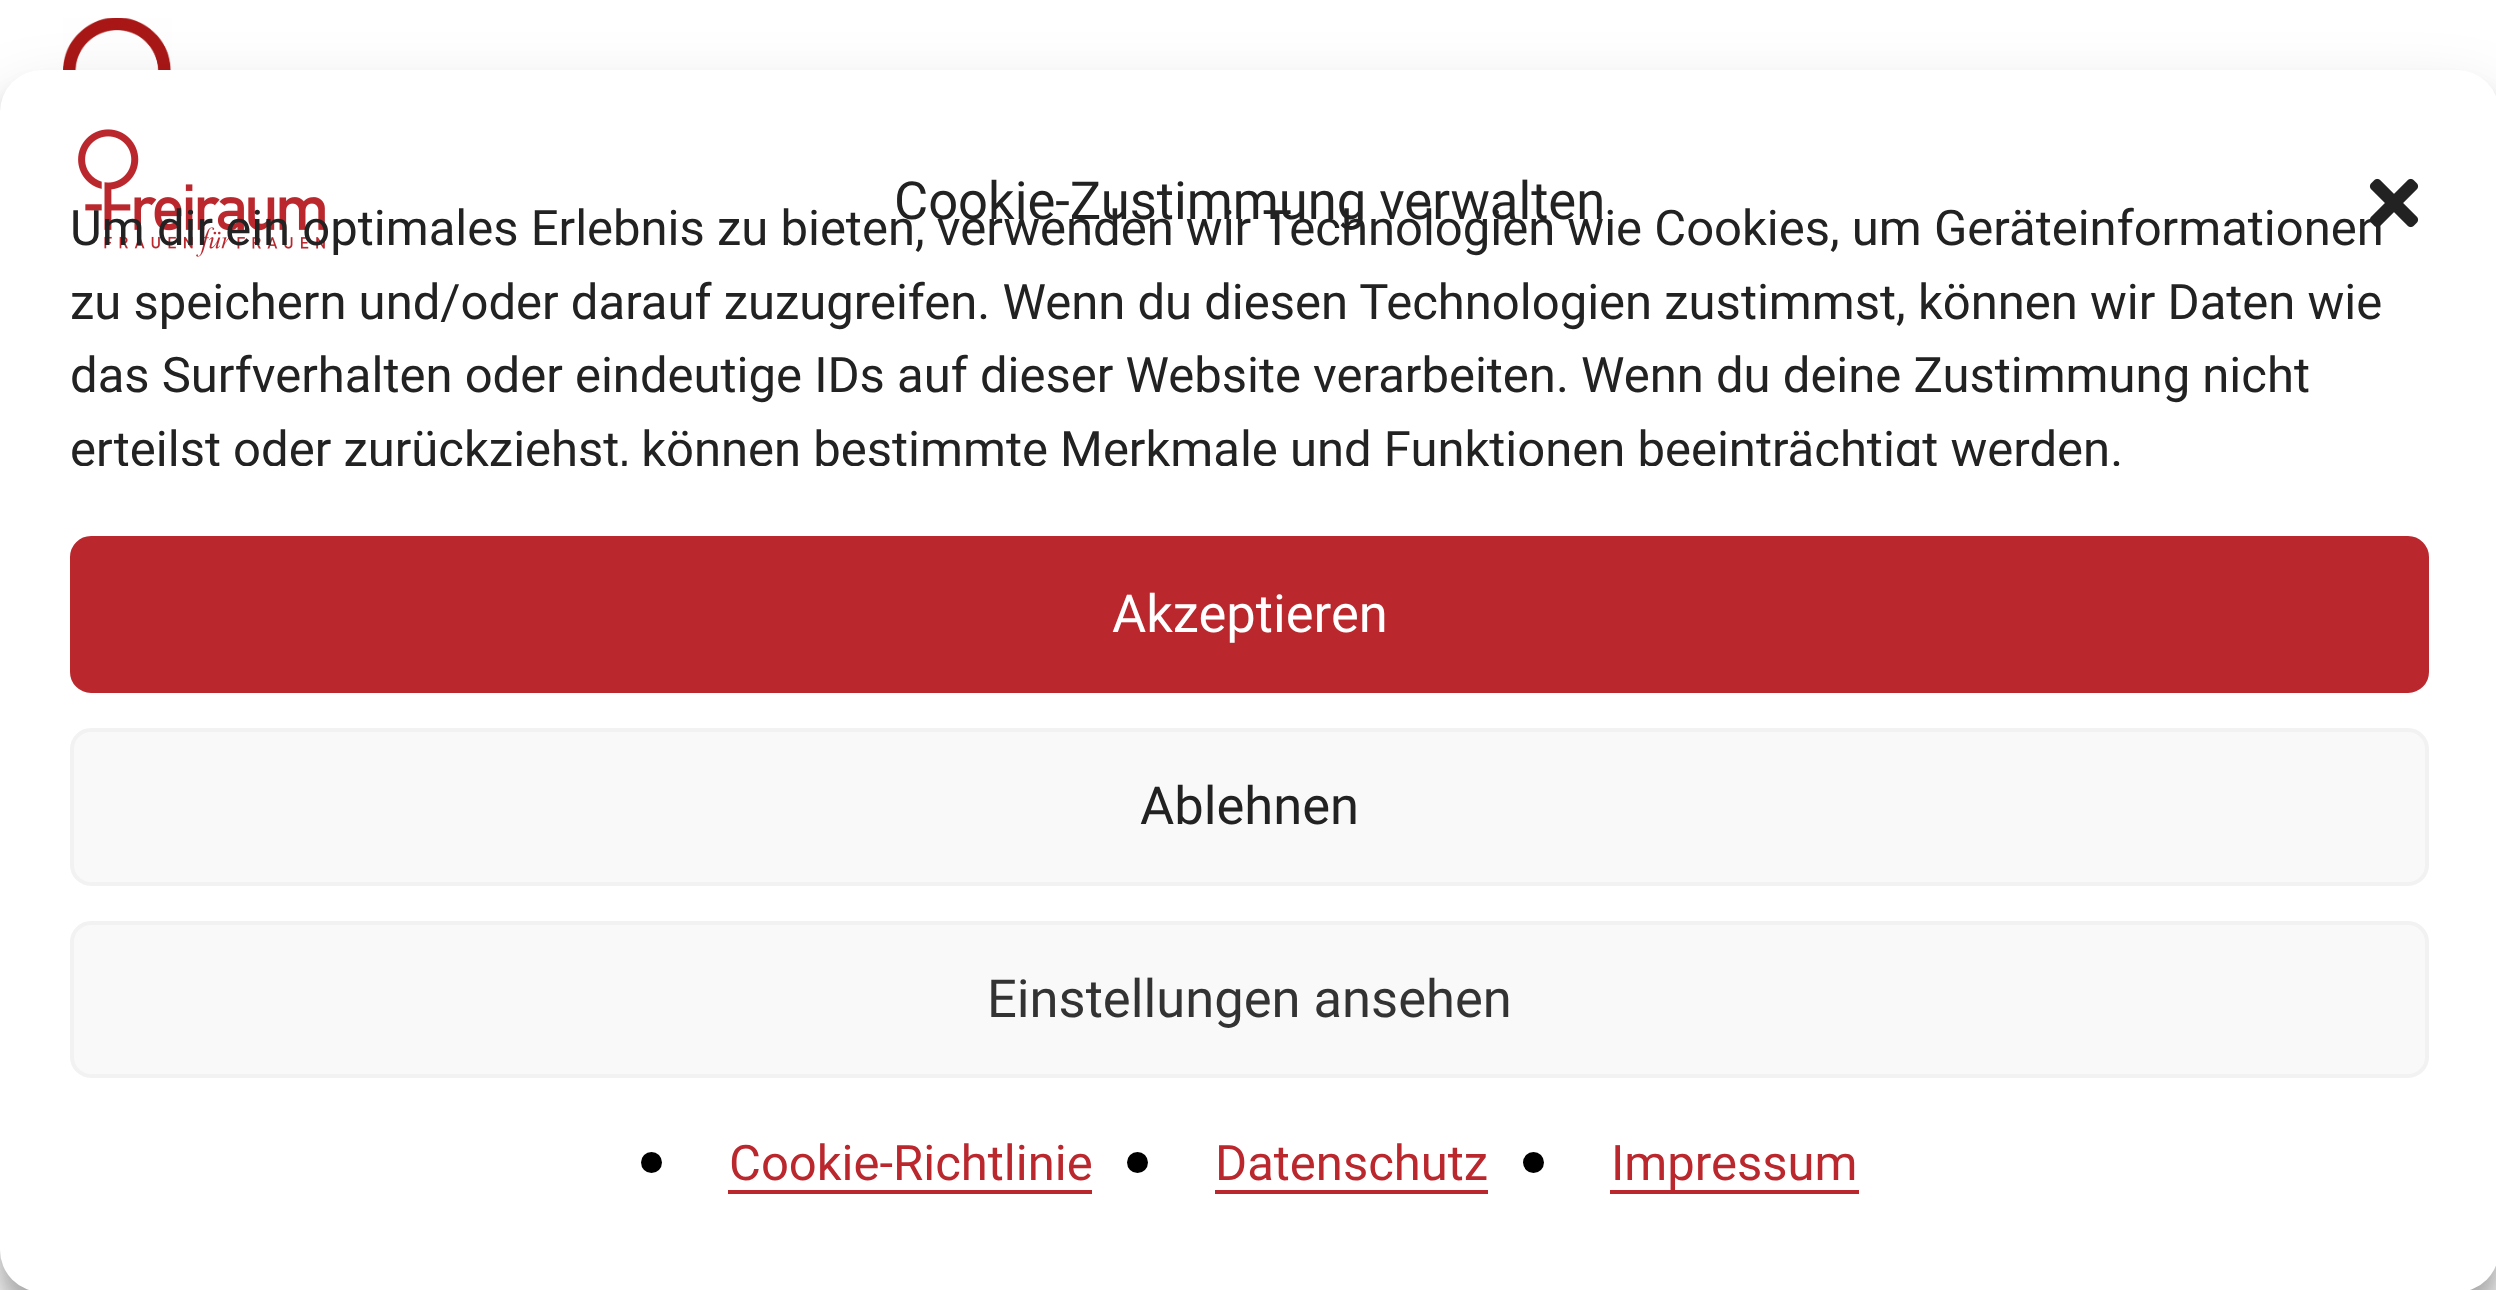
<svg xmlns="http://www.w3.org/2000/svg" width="2496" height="1290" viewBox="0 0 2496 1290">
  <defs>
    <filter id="blur1" x="-50%" y="-200%" width="200%" height="500%"><feGaussianBlur stdDeviation="10.5"/></filter>
    <filter id="blur2" x="-50%" y="-200%" width="200%" height="500%"><feGaussianBlur stdDeviation="35"/></filter>
    <clipPath id="clip1"><rect x="70" y="193" width="2359" height="273"/></clipPath>
  </defs>
  <rect width="100%" height="100%" fill="#ffffff"/>
  <image x="63" y="18" width="109" height="52" href="img1.png"/>
  <rect x="0" y="91" width="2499" height="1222" rx="42" fill="#000000" fill-opacity="0.23" filter="url(#blur1)"/>
  <rect x="0" y="105" width="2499" height="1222" rx="42" fill="#000000" fill-opacity="0.19" filter="url(#blur2)"/>
  <rect x="0" y="70" width="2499" height="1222" rx="42" fill="#ffffff"/>
  <image x="78" y="129" width="247" height="128" href="img2.png"/>
  <text x="894" y="219" font-family="Roboto" font-size="52.5" fill="#222222">Cookie-Zustimmung verwalten</text>
  <image x="2369" y="178" width="50" height="50" href="img3.png"/>
  <text x="70" y="245" font-family="Roboto" font-size="49" fill="#222222">Um dir ein optimales Erlebnis zu bieten, verwenden wir Technologien wie Cookies, um Geräteinformationen</text>
  <text x="70" y="319" font-family="Roboto" font-size="49" fill="#222222">zu speichern und/oder darauf zuzugreifen. Wenn du diesen Technologien zustimmst, können wir Daten wie</text>
  <text x="70" y="392" font-family="Roboto" font-size="49" fill="#222222">das Surfverhalten oder eindeutige IDs auf dieser Website verarbeiten. Wenn du deine Zustimmung nicht</text>
  <g clip-path="url(#clip1)">
    <text x="70" y="466" font-family="Roboto" font-size="49" fill="#222222">erteilst oder zurückziehst, können bestimmte Merkmale und Funktionen beeinträchtigt werden.</text>
  </g>
  <rect x="72" y="538" width="2355" height="153" rx="19" fill="#ba282e" stroke="#ba282e" stroke-width="4"/>
  <text x="1112" y="632" font-family="Roboto" font-size="52.5" fill="#ffffff">Akzeptieren</text>
  <rect x="72" y="730" width="2355" height="154" rx="19" fill="#f9f9f9" stroke="#f2f2f2" stroke-width="4"/>
  <text x="1140" y="824" font-family="Roboto" font-size="52.5" fill="#222222">Ablehnen</text>
  <rect x="72" y="923" width="2355" height="153" rx="19" fill="#f9f9f9" stroke="#f2f2f2" stroke-width="4"/>
  <text x="987" y="1017" font-family="Roboto" font-size="52.5" fill="#333333">Einstellungen ansehen</text>
  <circle cx="651.5" cy="1162.5" r="10.5" fill="#000000"/>
  <text x="729" y="1180" font-family="Roboto" font-size="49" fill="#ba282e">Cookie-Richtlinie</text>
  <rect x="728" y="1190" width="364" height="4" fill="#ba282e"/>
  <circle cx="1137.5" cy="1162.5" r="10.5" fill="#000000"/>
  <text x="1215" y="1180" font-family="Roboto" font-size="49" fill="#ba282e">Datenschutz</text>
  <rect x="1215" y="1190" width="273" height="4" fill="#ba282e"/>
  <circle cx="1533.5" cy="1162.5" r="10.5" fill="#000000"/>
  <text x="1611" y="1180" font-family="Roboto" font-size="49" fill="#ba282e">Impressum</text>
  <rect x="1610" y="1190" width="249" height="4" fill="#ba282e"/>
</svg>
